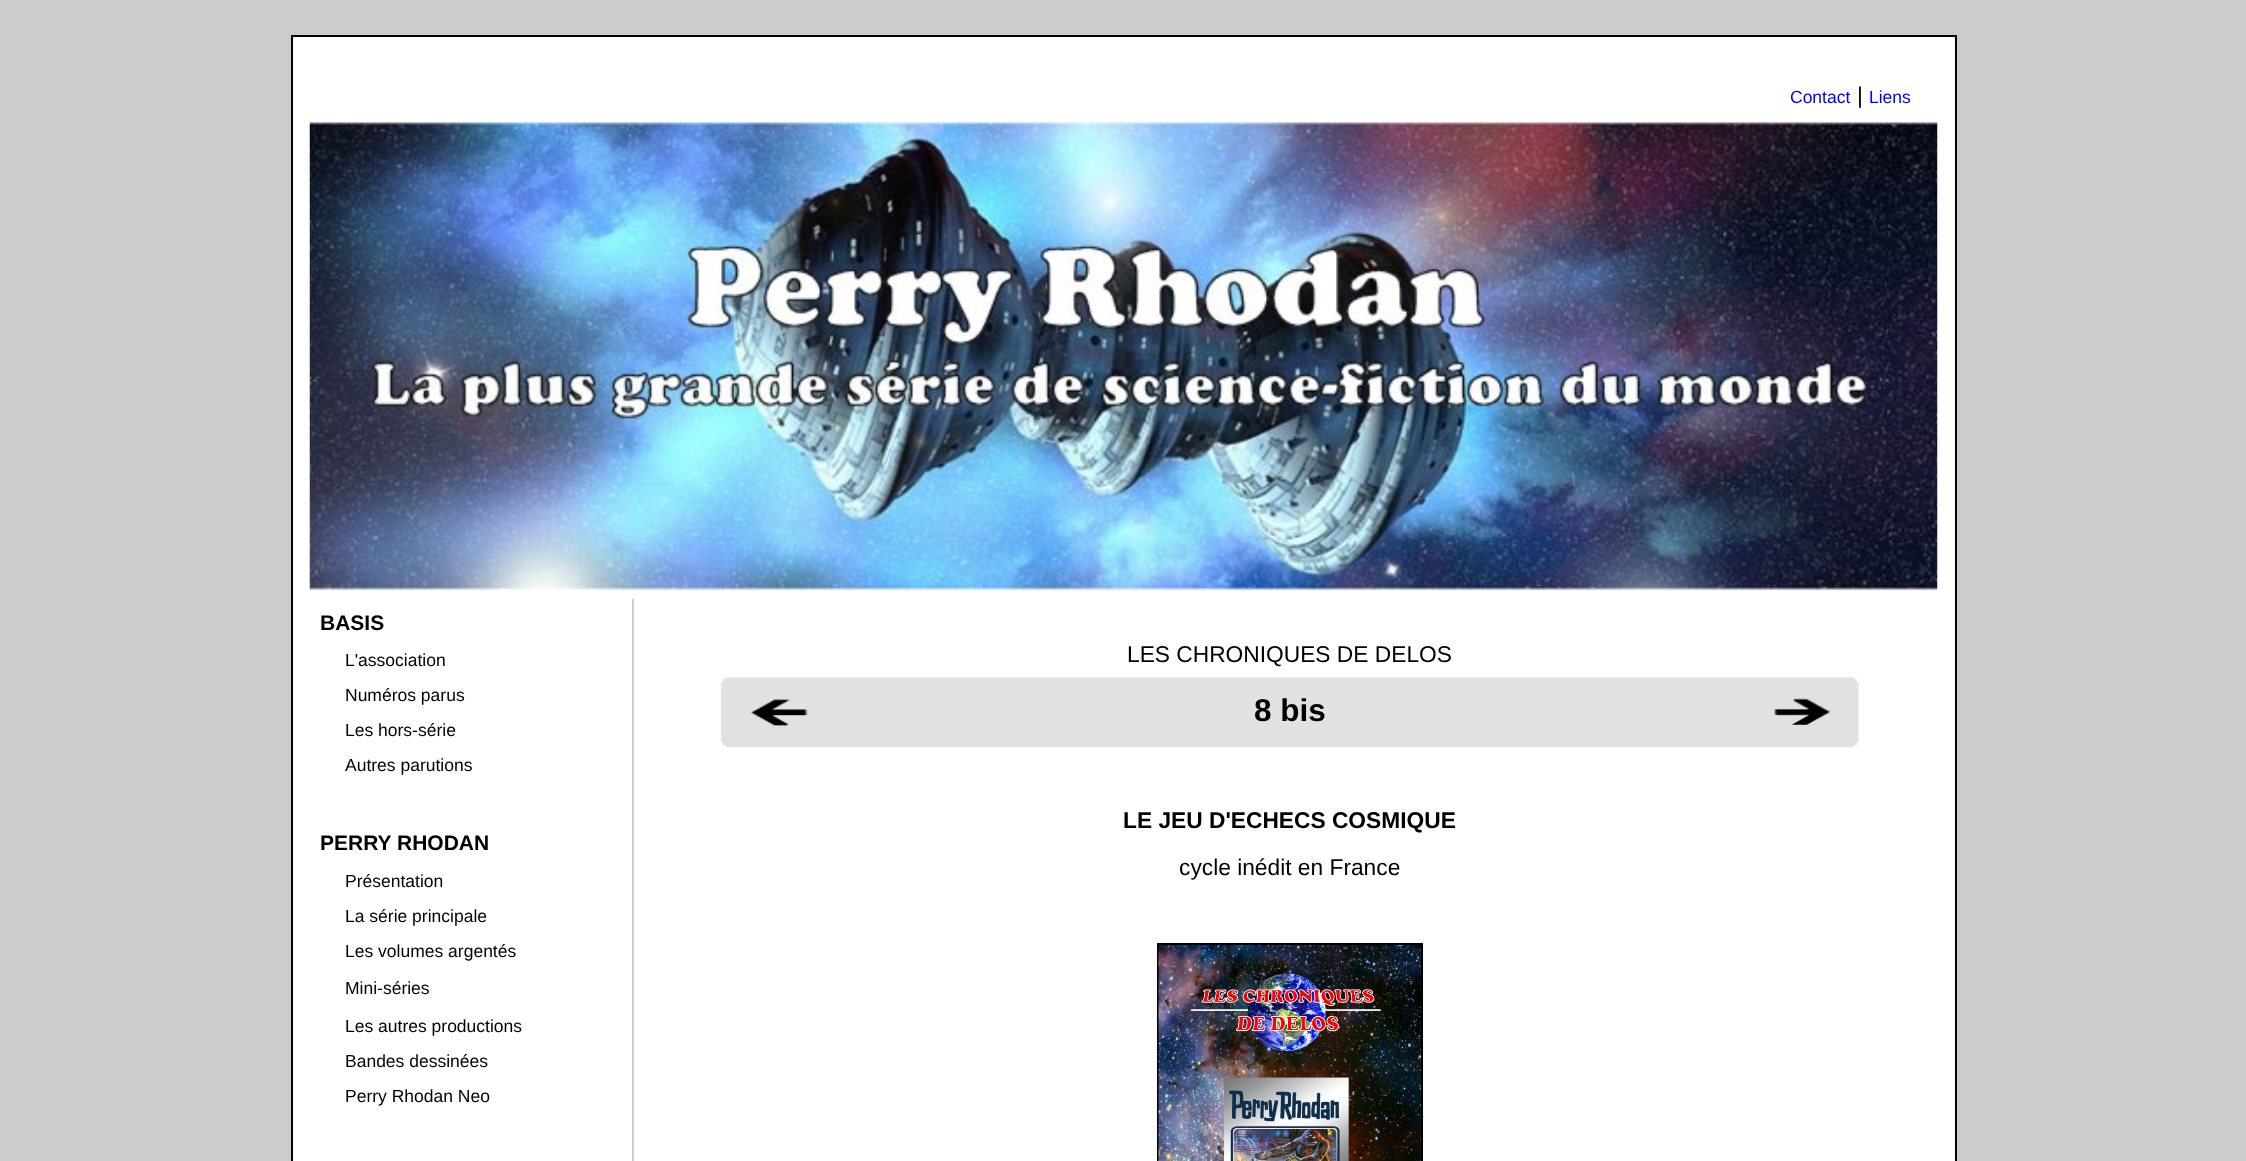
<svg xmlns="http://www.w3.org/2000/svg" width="2246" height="1161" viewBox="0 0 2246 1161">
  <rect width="100%" height="100%" fill="#cccccc"/>
  <rect x="292" y="36" width="1664" height="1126" fill="#ffffff" stroke="#000000" stroke-width="2"/>
  <text x="1790" y="103" font-family="Liberation Sans" font-size="17.5" fill="#0000ff">Contact</text>
  <text x="1857" y="103" font-family="Liberation Sans" font-size="22.75" fill="#000000">|</text>
  <text x="1869" y="103" font-family="Liberation Sans" font-size="17.5" fill="#0000ff">Liens</text>
  <image x="309" y="122" width="1629" height="468" href="img1.png"/>
  <text x="320" y="630" font-family="Liberation Sans" font-size="21" font-weight="bold" fill="#000000">BASIS</text>
  <text x="345" y="666" font-family="Liberation Sans" font-size="17.5" fill="#000000">L'association</text>
  <text x="345" y="701" font-family="Liberation Sans" font-size="17.5" fill="#000000">Numéros parus</text>
  <text x="345" y="736" font-family="Liberation Sans" font-size="17.5" fill="#000000">Les hors-série</text>
  <text x="345" y="771" font-family="Liberation Sans" font-size="17.5" fill="#000000">Autres parutions</text>
  <text x="320" y="850" font-family="Liberation Sans" font-size="21" font-weight="bold" fill="#000000">PERRY RHODAN</text>
  <text x="345" y="887" font-family="Liberation Sans" font-size="17.5" fill="#000000">Présentation</text>
  <text x="345" y="922" font-family="Liberation Sans" font-size="17.5" fill="#000000">La série principale</text>
  <text x="345" y="957" font-family="Liberation Sans" font-size="17.5" fill="#000000">Les volumes argentés</text>
  <text x="345" y="994" font-family="Liberation Sans" font-size="17.5" fill="#000000">Mini-séries</text>
  <text x="345" y="1032" font-family="Liberation Sans" font-size="17.5" fill="#000000">Les autres productions</text>
  <text x="345" y="1067" font-family="Liberation Sans" font-size="17.5" fill="#000000">Bandes dessinées</text>
  <text x="345" y="1102" font-family="Liberation Sans" font-size="17.5" fill="#000000">Perry Rhodan Neo</text>
  <rect x="632" y="599" width="2" height="562" fill="#cccccc"/>
  <text x="1127" y="662" font-family="Liberation Sans" font-size="22.75" fill="#000000">LES CHRONIQUES DE DELOS</text>
  <image x="721" y="677" width="1138" height="71" href="img2.png"/>
  <image x="750" y="699" width="58" height="27" href="img3.png"/>
  <text x="1254" y="721" font-family="Liberation Sans" font-size="31.5" font-weight="bold" fill="#000000">8 bis</text>
  <image x="1774" y="698" width="57" height="27" href="img4.png"/>
  <text x="1123" y="828" font-family="Liberation Sans" font-size="22.75" font-weight="bold" fill="#000000">LE JEU D'ECHECS COSMIQUE</text>
  <text x="1179" y="875" font-family="Liberation Sans" font-size="22.75" fill="#000000">cycle inédit en France</text>
  <rect x="1158" y="944" width="264" height="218" fill="none" stroke="#000000" stroke-width="2"/>
  <image x="1158" y="945" width="263" height="216" href="img5.png"/>
</svg>
